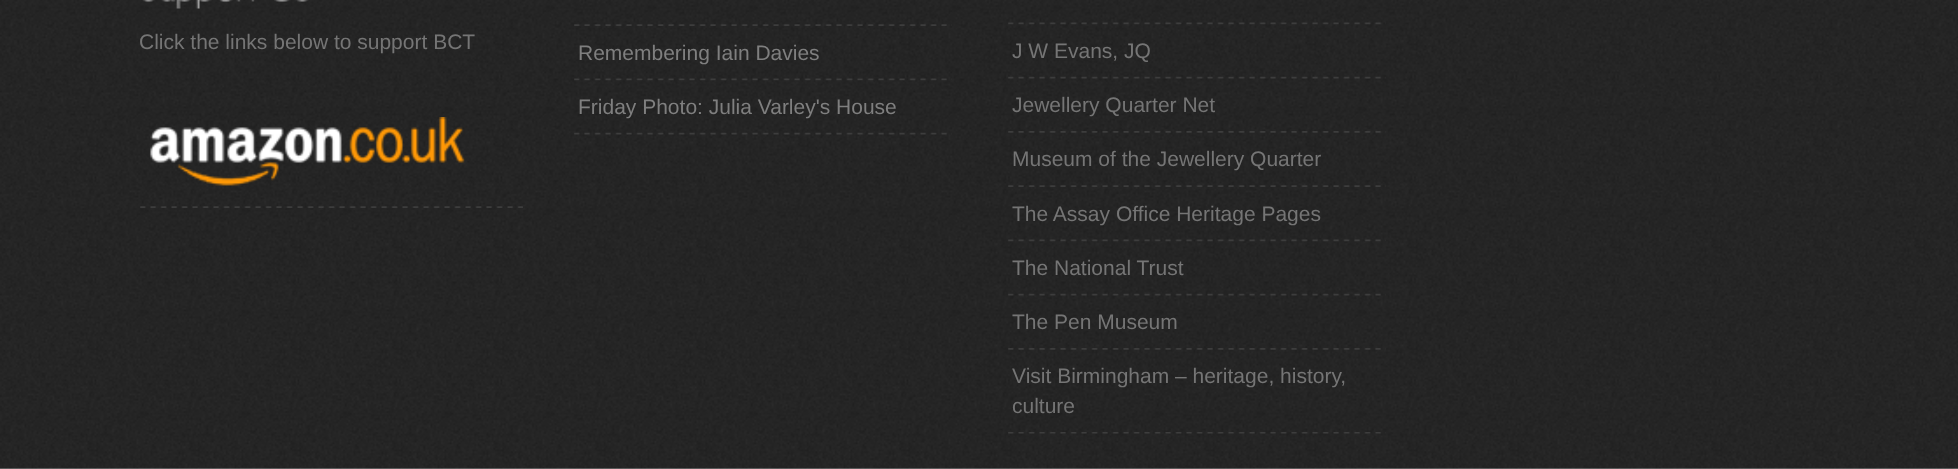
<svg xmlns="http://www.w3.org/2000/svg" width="1958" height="469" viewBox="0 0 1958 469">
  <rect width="100%" height="100%" fill="#ffffff"/>
  <image x="0" y="0" width="1958" height="469" href="img1.png"/>
  <image x="142" y="0" width="113" height="9" href="img2.png"/>
  <image x="274" y="0" width="35" height="2" href="img3.png"/>
  <text x="139" y="49" font-family="Liberation Sans" font-size="21" fill="#757575">Click the links below to support BCT</text>
  <image x="140" y="206" width="383" height="2" href="img4.png"/>
  <image x="150" y="117" width="315" height="69" href="img5.png"/>
  <image x="574" y="24" width="378" height="2" href="img6.png"/>
  <image x="574" y="78" width="378" height="3" href="img7.png"/>
  <text x="578" y="60" font-family="Liberation Sans" font-size="21" fill="#7f7f7f">Remembering Iain Davies</text>
  <image x="574" y="132" width="378" height="3" href="img8.png"/>
  <text x="578" y="114" font-family="Liberation Sans" font-size="21" fill="#7f7f7f">Friday Photo: Julia Varley's House</text>
  <image x="1008" y="22" width="378" height="3" href="img9.png"/>
  <image x="1008" y="76" width="378" height="3" href="img10.png"/>
  <text x="1012" y="58" font-family="Liberation Sans" font-size="21" fill="#757575">J W Evans, JQ</text>
  <image x="1008" y="131" width="378" height="2" href="img11.png"/>
  <text x="1012" y="112" font-family="Liberation Sans" font-size="21" fill="#757575">Jewellery Quarter Net</text>
  <image x="1008" y="185" width="378" height="2" href="img12.png"/>
  <text x="1012" y="166" font-family="Liberation Sans" font-size="21" fill="#757575">Museum of the Jewellery Quarter</text>
  <image x="1008" y="239" width="378" height="3" href="img13.png"/>
  <text x="1012" y="221" font-family="Liberation Sans" font-size="21" fill="#757575">The Assay Office Heritage Pages</text>
  <image x="1008" y="293" width="378" height="3" href="img14.png"/>
  <text x="1012" y="275" font-family="Liberation Sans" font-size="21" fill="#757575">The National Trust</text>
  <image x="1008" y="348" width="378" height="2" href="img15.png"/>
  <text x="1012" y="329" font-family="Liberation Sans" font-size="21" fill="#757575">The Pen Museum</text>
  <image x="1008" y="432" width="378" height="2" href="img16.png"/>
  <text x="1012" y="383" font-family="Liberation Sans" font-size="21" fill="#757575">Visit Birmingham – heritage, history,</text>
  <text x="1012" y="413" font-family="Liberation Sans" font-size="21" fill="#757575">culture</text>
</svg>
